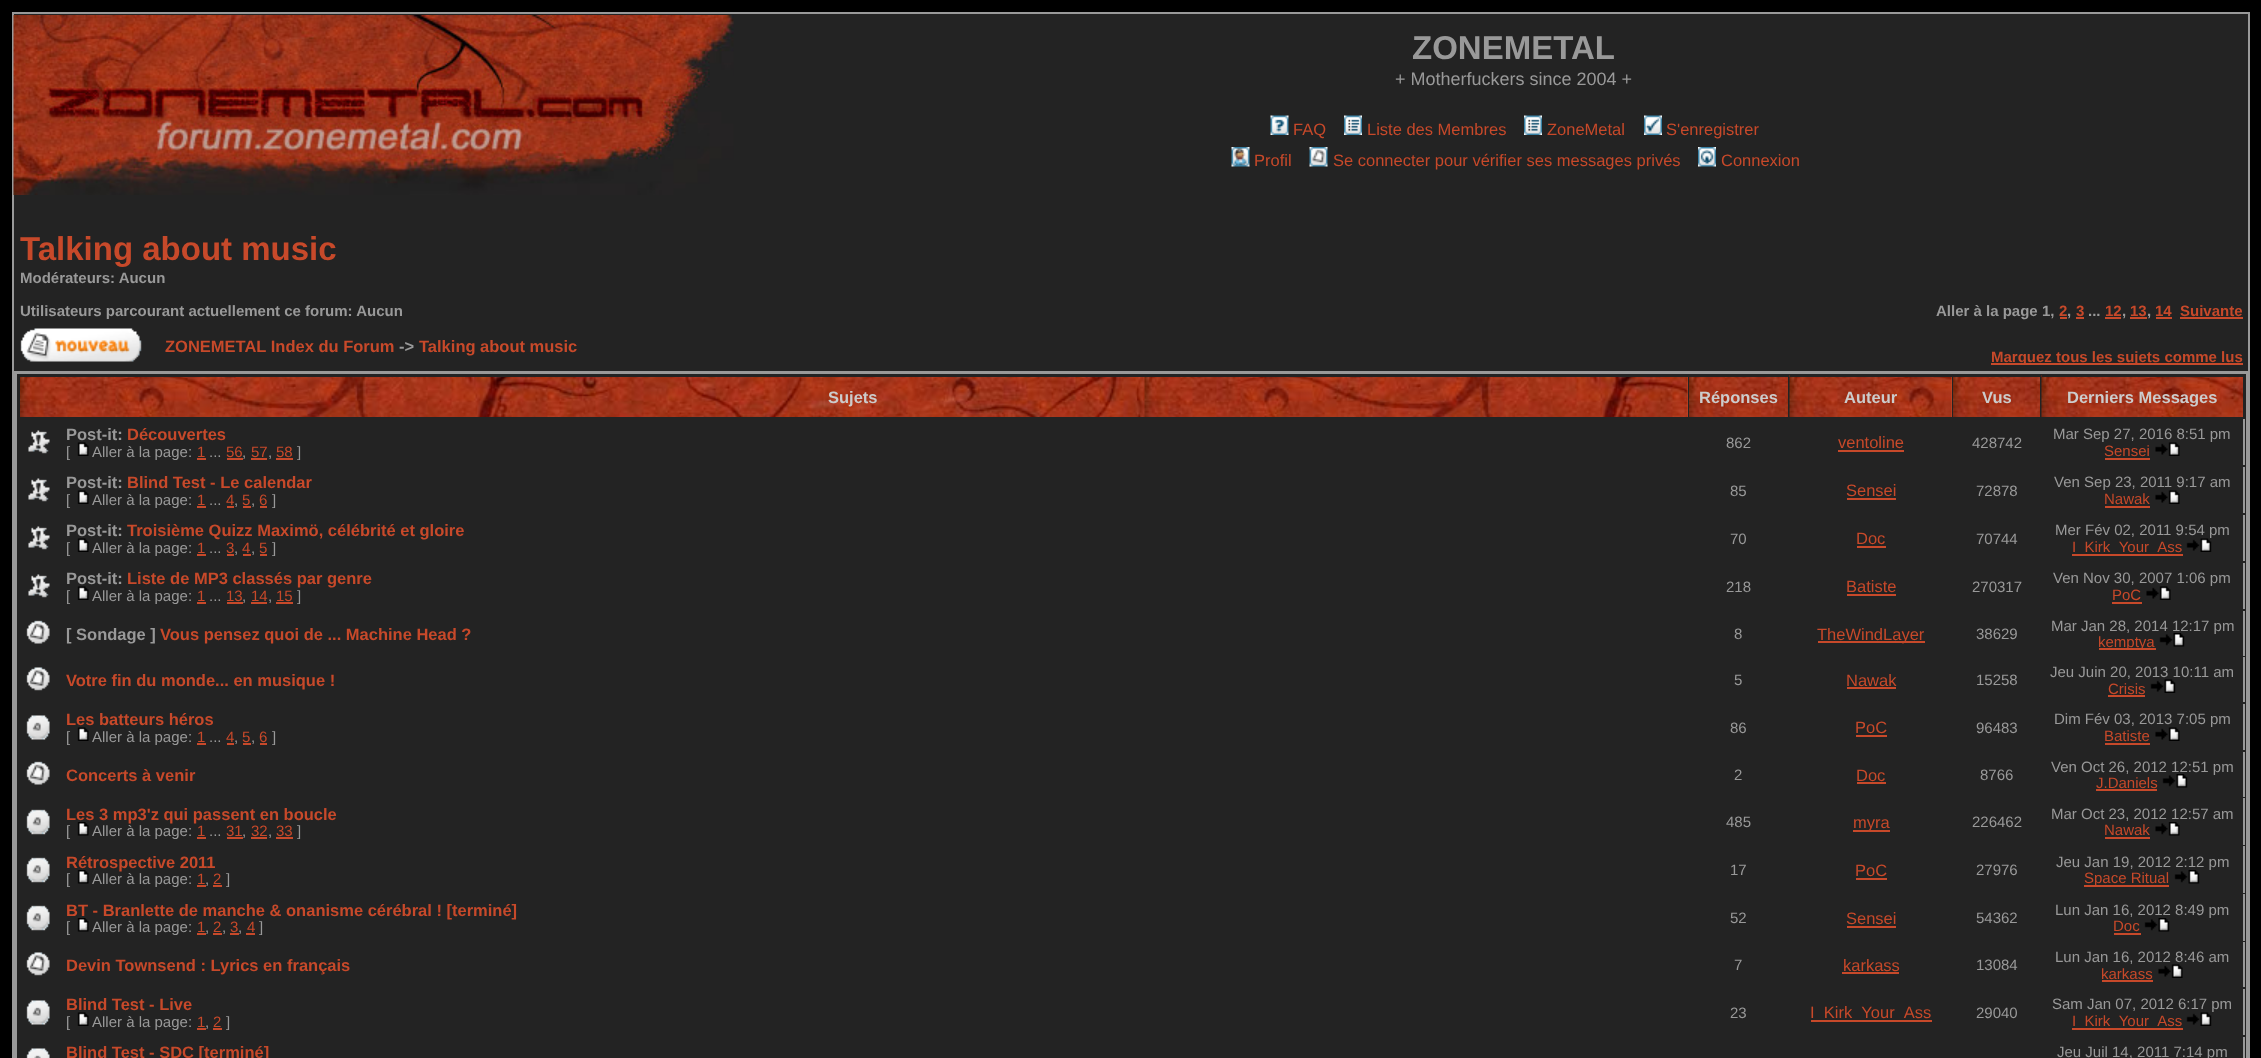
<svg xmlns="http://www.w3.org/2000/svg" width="2261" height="1058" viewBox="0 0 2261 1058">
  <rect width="100%" height="100%" fill="#000000"/>
  <rect x="14" y="14" width="2234" height="357" fill="#232323"/>
  <rect x="13" y="13" width="2236" height="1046" fill="none" stroke="#999999" stroke-width="2"/>
  <image x="13" y="15" width="721" height="180" href="img1.png"/>
  <text x="1412" y="59" font-family="Liberation Sans" font-size="33" font-weight="bold" fill="#999999">ZONEMETAL</text>
  <text x="1395" y="85" font-family="Liberation Sans" font-size="18" fill="#999999">+ Motherfuckers since 2004 +</text>
  <image x="1270" y="115" width="19" height="20" href="img2.png"/>
  <text x="1293" y="135" font-family="Liberation Sans" font-size="16.5" fill="#c7492a">FAQ</text>
  <image x="1344" y="115" width="18" height="20" href="img3.png"/>
  <text x="1367" y="135" font-family="Liberation Sans" font-size="16.5" fill="#c7492a">Liste des Membres</text>
  <image x="1524" y="115" width="18" height="20" href="img4.png"/>
  <text x="1547" y="135" font-family="Liberation Sans" font-size="16.5" fill="#c7492a">ZoneMetal</text>
  <image x="1644" y="115" width="18" height="20" href="img5.png"/>
  <text x="1666" y="135" font-family="Liberation Sans" font-size="16.5" fill="#c7492a">S'enregistrer</text>
  <image x="1231" y="147" width="19" height="20" href="img6.png"/>
  <text x="1254" y="166" font-family="Liberation Sans" font-size="16.5" fill="#c7492a">Profil</text>
  <image x="1309" y="147" width="19" height="20" href="img7.png"/>
  <text x="1333" y="166" font-family="Liberation Sans" font-size="16.5" fill="#c7492a">Se connecter pour vérifier ses messages privés</text>
  <image x="1698" y="147" width="18" height="20" href="img8.png"/>
  <text x="1721" y="166" font-family="Liberation Sans" font-size="16.5" fill="#c7492a">Connexion</text>
  <text x="20" y="260" font-family="Liberation Sans" font-size="33" font-weight="bold" fill="#c7492a">Talking about music</text>
  <text x="20" y="283" font-family="Liberation Sans" font-size="15" font-weight="bold" fill="#999999">Modérateurs: Aucun</text>
  <text x="20" y="316" font-family="Liberation Sans" font-size="15" font-weight="bold" fill="#999999">Utilisateurs parcourant actuellement ce forum: Aucun</text>
  <text x="1936" y="316" font-family="Liberation Sans" font-size="15" font-weight="bold" fill="#999999">Aller à la page 1,</text>
  <text x="2059" y="316" font-family="Liberation Sans" font-size="15" font-weight="bold" fill="#c7492a">2</text>
  <text x="2067" y="316" font-family="Liberation Sans" font-size="15" font-weight="bold" fill="#999999">,</text>
  <rect x="2060" y="317" width="7" height="2" fill="#c7492a"/>
  <rect x="2076" y="317" width="8" height="2" fill="#c7492a"/>
  <text x="2076" y="316" font-family="Liberation Sans" font-size="15" font-weight="bold" fill="#c7492a">3</text>
  <text x="2088" y="316" font-family="Liberation Sans" font-size="15" font-weight="bold" fill="#999999">...</text>
  <text x="2105" y="316" font-family="Liberation Sans" font-size="15" font-weight="bold" fill="#c7492a">12</text>
  <text x="2122" y="316" font-family="Liberation Sans" font-size="15" font-weight="bold" fill="#999999">,</text>
  <rect x="2105" y="317" width="16" height="2" fill="#c7492a"/>
  <text x="2130" y="316" font-family="Liberation Sans" font-size="15" font-weight="bold" fill="#c7492a">13</text>
  <text x="2147" y="316" font-family="Liberation Sans" font-size="15" font-weight="bold" fill="#999999">,</text>
  <rect x="2130" y="317" width="17" height="2" fill="#c7492a"/>
  <rect x="2156" y="317" width="16" height="2" fill="#c7492a"/>
  <text x="2155" y="316" font-family="Liberation Sans" font-size="15" font-weight="bold" fill="#c7492a">14</text>
  <text x="2180" y="316" font-family="Liberation Sans" font-size="15" font-weight="bold" fill="#c7492a">Suivante</text>
  <rect x="2180" y="317" width="63" height="2" fill="#c7492a"/>
  <image x="20" y="328" width="122" height="34" href="img9.png"/>
  <text x="165" y="352" font-family="Liberation Sans" font-size="16.5" font-weight="bold" fill="#c7492a">ZONEMETAL Index du Forum</text>
  <text x="399" y="352" font-family="Liberation Sans" font-size="16.5" font-weight="bold" fill="#999999">-&gt;</text>
  <text x="419" y="352" font-family="Liberation Sans" font-size="16.5" font-weight="bold" fill="#c7492a">Talking about music</text>
  <rect x="1991" y="363" width="252" height="2" fill="#c7492a"/>
  <text x="1991" y="362" font-family="Liberation Sans" font-size="15" font-weight="bold" fill="#c7492a">Marquez tous les sujets comme lus</text>
  <rect x="15.5" y="372.5" width="2232" height="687" fill="#232323" stroke="#999999" stroke-width="3"/>
  <rect x="1687" y="377" width="1" height="40" fill="#c7492a"/>
  <image x="20" y="377" width="1668" height="40" href="img10.png"/>
  <text x="828" y="403" font-family="Liberation Sans" font-size="16.5" font-weight="bold" fill="#cccccc">Sujets</text>
  <image x="1689" y="377" width="99" height="40" href="img11.png"/>
  <text x="1699" y="403" font-family="Liberation Sans" font-size="16.5" font-weight="bold" fill="#cccccc">Réponses</text>
  <rect x="1951" y="377" width="1" height="40" fill="#c7492a"/>
  <image x="1789" y="375" width="163" height="42" href="img12.png"/>
  <rect x="1790" y="375" width="162" height="2" fill="#232323"/>
  <text x="1844" y="403" font-family="Liberation Sans" font-size="16.5" font-weight="bold" fill="#cccccc">Auteur</text>
  <image x="1953" y="377" width="87" height="40" href="img13.png"/>
  <text x="1982" y="403" font-family="Liberation Sans" font-size="16.5" font-weight="bold" fill="#cccccc">Vus</text>
  <image x="2041" y="375" width="202" height="42" href="img14.png"/>
  <rect x="2042" y="375" width="202" height="2" fill="#232323"/>
  <text x="2067" y="403" font-family="Liberation Sans" font-size="16.5" font-weight="bold" fill="#cccccc">Derniers Messages</text>
  <image x="28" y="430" width="22" height="24" href="img15.png"/>
  <text x="66" y="440" font-family="Liberation Sans" font-size="16.5" font-weight="bold" fill="#999999">Post-it:</text>
  <text x="127" y="440" font-family="Liberation Sans" font-size="16.5" font-weight="bold" fill="#c7492a">Découvertes</text>
  <text x="66" y="457" font-family="Liberation Sans" font-size="15" fill="#999999">[</text>
  <image x="77" y="442" width="12" height="14" href="img16.png"/>
  <text x="92" y="457" font-family="Liberation Sans" font-size="15" fill="#999999">Aller à la page:</text>
  <text x="197" y="457" font-family="Liberation Sans" font-size="15" fill="#c7492a">1</text>
  <text x="209" y="457" font-family="Liberation Sans" font-size="15" fill="#999999">...</text>
  <rect x="197" y="458" width="9" height="2" fill="#c7492a"/>
  <text x="226" y="457" font-family="Liberation Sans" font-size="15" fill="#c7492a">56</text>
  <text x="242" y="457" font-family="Liberation Sans" font-size="15" fill="#999999">,</text>
  <rect x="227" y="458" width="16" height="2" fill="#c7492a"/>
  <text x="251" y="457" font-family="Liberation Sans" font-size="15" fill="#c7492a">57</text>
  <text x="268" y="457" font-family="Liberation Sans" font-size="15" fill="#999999">,</text>
  <rect x="251" y="458" width="16" height="2" fill="#c7492a"/>
  <rect x="276" y="458" width="17" height="2" fill="#c7492a"/>
  <text x="276" y="457" font-family="Liberation Sans" font-size="15" fill="#c7492a">58</text>
  <text x="297" y="457" font-family="Liberation Sans" font-size="15" fill="#999999">]</text>
  <text x="1726" y="448" font-family="Liberation Sans" font-size="15" fill="#999999">862</text>
  <text x="1838" y="448" font-family="Liberation Sans" font-size="16.5" fill="#c7492a">ventoline</text>
  <rect x="1838" y="450" width="66" height="2" fill="#c7492a"/>
  <text x="1972" y="448" font-family="Liberation Sans" font-size="15" fill="#999999">428742</text>
  <rect x="2243" y="419" width="2" height="46" fill="#999999"/>
  <text x="2053" y="439" font-family="Liberation Sans" font-size="15" fill="#999999">Mar Sep 27, 2016 8:51 pm</text>
  <text x="2104" y="456" font-family="Liberation Sans" font-size="15" fill="#c7492a">Sensei</text>
  <rect x="2105" y="458" width="45" height="2" fill="#c7492a"/>
  <image x="2155" y="442" width="25" height="14" href="img17.png"/>
  <image x="28" y="478" width="22" height="24" href="img15.png"/>
  <text x="66" y="488" font-family="Liberation Sans" font-size="16.5" font-weight="bold" fill="#999999">Post-it:</text>
  <text x="127" y="488" font-family="Liberation Sans" font-size="16.5" font-weight="bold" fill="#c7492a">Blind Test - Le calendar</text>
  <text x="66" y="505" font-family="Liberation Sans" font-size="15" fill="#999999">[</text>
  <image x="77" y="490" width="12" height="14" href="img16.png"/>
  <text x="92" y="505" font-family="Liberation Sans" font-size="15" fill="#999999">Aller à la page:</text>
  <text x="197" y="505" font-family="Liberation Sans" font-size="15" fill="#c7492a">1</text>
  <text x="209" y="505" font-family="Liberation Sans" font-size="15" fill="#999999">...</text>
  <rect x="197" y="506" width="9" height="2" fill="#c7492a"/>
  <text x="226" y="505" font-family="Liberation Sans" font-size="15" fill="#c7492a">4</text>
  <text x="234" y="505" font-family="Liberation Sans" font-size="15" fill="#999999">,</text>
  <rect x="227" y="506" width="7" height="2" fill="#c7492a"/>
  <text x="242" y="505" font-family="Liberation Sans" font-size="15" fill="#c7492a">5</text>
  <text x="251" y="505" font-family="Liberation Sans" font-size="15" fill="#999999">,</text>
  <rect x="243" y="506" width="8" height="2" fill="#c7492a"/>
  <rect x="260" y="506" width="7" height="2" fill="#c7492a"/>
  <text x="259" y="505" font-family="Liberation Sans" font-size="15" fill="#c7492a">6</text>
  <text x="272" y="505" font-family="Liberation Sans" font-size="15" fill="#999999">]</text>
  <text x="1730" y="496" font-family="Liberation Sans" font-size="15" fill="#999999">85</text>
  <text x="1846" y="496" font-family="Liberation Sans" font-size="16.5" fill="#c7492a">Sensei</text>
  <rect x="1847" y="498" width="49" height="2" fill="#c7492a"/>
  <text x="1976" y="496" font-family="Liberation Sans" font-size="15" fill="#999999">72878</text>
  <rect x="2243" y="467" width="2" height="46" fill="#999999"/>
  <text x="2054" y="487" font-family="Liberation Sans" font-size="15" fill="#999999">Ven Sep 23, 2011 9:17 am</text>
  <text x="2104" y="504" font-family="Liberation Sans" font-size="15" fill="#c7492a">Nawak</text>
  <rect x="2105" y="506" width="45" height="2" fill="#c7492a"/>
  <image x="2155" y="490" width="25" height="14" href="img17.png"/>
  <image x="28" y="526" width="22" height="24" href="img15.png"/>
  <text x="66" y="536" font-family="Liberation Sans" font-size="16.5" font-weight="bold" fill="#999999">Post-it:</text>
  <text x="127" y="536" font-family="Liberation Sans" font-size="16.5" font-weight="bold" fill="#c7492a">Troisième Quizz Maximö, célébrité et gloire</text>
  <text x="66" y="553" font-family="Liberation Sans" font-size="15" fill="#999999">[</text>
  <image x="77" y="538" width="12" height="14" href="img16.png"/>
  <text x="92" y="553" font-family="Liberation Sans" font-size="15" fill="#999999">Aller à la page:</text>
  <text x="197" y="553" font-family="Liberation Sans" font-size="15" fill="#c7492a">1</text>
  <text x="209" y="553" font-family="Liberation Sans" font-size="15" fill="#999999">...</text>
  <rect x="197" y="554" width="9" height="2" fill="#c7492a"/>
  <text x="226" y="553" font-family="Liberation Sans" font-size="15" fill="#c7492a">3</text>
  <text x="234" y="553" font-family="Liberation Sans" font-size="15" fill="#999999">,</text>
  <rect x="227" y="554" width="7" height="2" fill="#c7492a"/>
  <text x="242" y="553" font-family="Liberation Sans" font-size="15" fill="#c7492a">4</text>
  <text x="251" y="553" font-family="Liberation Sans" font-size="15" fill="#999999">,</text>
  <rect x="243" y="554" width="8" height="2" fill="#c7492a"/>
  <rect x="260" y="554" width="7" height="2" fill="#c7492a"/>
  <text x="259" y="553" font-family="Liberation Sans" font-size="15" fill="#c7492a">5</text>
  <text x="272" y="553" font-family="Liberation Sans" font-size="15" fill="#999999">]</text>
  <text x="1730" y="544" font-family="Liberation Sans" font-size="15" fill="#999999">70</text>
  <text x="1856" y="544" font-family="Liberation Sans" font-size="16.5" fill="#c7492a">Doc</text>
  <rect x="1857" y="546" width="29" height="2" fill="#c7492a"/>
  <text x="1976" y="544" font-family="Liberation Sans" font-size="15" fill="#999999">70744</text>
  <rect x="2243" y="515" width="2" height="46" fill="#999999"/>
  <text x="2055" y="535" font-family="Liberation Sans" font-size="15" fill="#999999">Mer Fév 02, 2011 9:54 pm</text>
  <rect x="2072" y="554" width="111" height="2" fill="#c7492a"/>
  <text x="2072" y="552" font-family="Liberation Sans" font-size="15" fill="#c7492a">I_Kirk_Your_Ass</text>
  <image x="2186" y="538" width="26" height="14" href="img18.png"/>
  <image x="28" y="574" width="22" height="24" href="img15.png"/>
  <text x="66" y="584" font-family="Liberation Sans" font-size="16.5" font-weight="bold" fill="#999999">Post-it:</text>
  <text x="127" y="584" font-family="Liberation Sans" font-size="16.5" font-weight="bold" fill="#c7492a">Liste de MP3 classés par genre</text>
  <text x="66" y="601" font-family="Liberation Sans" font-size="15" fill="#999999">[</text>
  <image x="77" y="586" width="12" height="14" href="img16.png"/>
  <text x="92" y="601" font-family="Liberation Sans" font-size="15" fill="#999999">Aller à la page:</text>
  <text x="197" y="601" font-family="Liberation Sans" font-size="15" fill="#c7492a">1</text>
  <text x="209" y="601" font-family="Liberation Sans" font-size="15" fill="#999999">...</text>
  <rect x="197" y="602" width="9" height="2" fill="#c7492a"/>
  <text x="226" y="601" font-family="Liberation Sans" font-size="15" fill="#c7492a">13</text>
  <text x="242" y="601" font-family="Liberation Sans" font-size="15" fill="#999999">,</text>
  <rect x="227" y="602" width="16" height="2" fill="#c7492a"/>
  <text x="251" y="601" font-family="Liberation Sans" font-size="15" fill="#c7492a">14</text>
  <text x="268" y="601" font-family="Liberation Sans" font-size="15" fill="#999999">,</text>
  <rect x="251" y="602" width="16" height="2" fill="#c7492a"/>
  <rect x="276" y="602" width="17" height="2" fill="#c7492a"/>
  <text x="276" y="601" font-family="Liberation Sans" font-size="15" fill="#c7492a">15</text>
  <text x="297" y="601" font-family="Liberation Sans" font-size="15" fill="#999999">]</text>
  <text x="1726" y="592" font-family="Liberation Sans" font-size="15" fill="#999999">218</text>
  <text x="1846" y="592" font-family="Liberation Sans" font-size="16.5" fill="#c7492a">Batiste</text>
  <rect x="1847" y="594" width="49" height="2" fill="#c7492a"/>
  <text x="1972" y="592" font-family="Liberation Sans" font-size="15" fill="#999999">270317</text>
  <rect x="2243" y="563" width="2" height="46" fill="#999999"/>
  <text x="2053" y="583" font-family="Liberation Sans" font-size="15" fill="#999999">Ven Nov 30, 2007 1:06 pm</text>
  <text x="2112" y="600" font-family="Liberation Sans" font-size="15" fill="#c7492a">PoC</text>
  <rect x="2112" y="602" width="30" height="2" fill="#c7492a"/>
  <image x="2146" y="586" width="25" height="14" href="img17.png"/>
  <image x="26" y="620" width="24" height="24" href="img19.png"/>
  <text x="66" y="640" font-family="Liberation Sans" font-size="16.5" font-weight="bold" fill="#999999">[ Sondage ]</text>
  <text x="160" y="640" font-family="Liberation Sans" font-size="16.5" font-weight="bold" fill="#c7492a">Vous pensez quoi de ... Machine Head ?</text>
  <text x="1734" y="639" font-family="Liberation Sans" font-size="15" fill="#999999">8</text>
  <rect x="1818" y="641" width="107" height="2" fill="#c7492a"/>
  <text x="1817" y="640" font-family="Liberation Sans" font-size="16.5" fill="#c7492a">TheWindLayer</text>
  <text x="1976" y="639" font-family="Liberation Sans" font-size="15" fill="#999999">38629</text>
  <rect x="2243" y="611" width="2" height="45" fill="#999999"/>
  <text x="2051" y="631" font-family="Liberation Sans" font-size="15" fill="#999999">Mar Jan 28, 2014 12:17 pm</text>
  <rect x="2099" y="648" width="57" height="2" fill="#c7492a"/>
  <text x="2098" y="647" font-family="Liberation Sans" font-size="15" fill="#c7492a">kemptya</text>
  <image x="2159" y="633" width="26" height="14" href="img20.png"/>
  <image x="26" y="667" width="24" height="24" href="img21.png"/>
  <text x="66" y="686" font-family="Liberation Sans" font-size="16.5" font-weight="bold" fill="#c7492a">Votre fin du monde... en musique !</text>
  <text x="1734" y="685" font-family="Liberation Sans" font-size="15" fill="#999999">5</text>
  <text x="1846" y="686" font-family="Liberation Sans" font-size="16.5" fill="#c7492a">Nawak</text>
  <rect x="1847" y="687" width="49" height="2" fill="#c7492a"/>
  <text x="1976" y="685" font-family="Liberation Sans" font-size="15" fill="#999999">15258</text>
  <rect x="2243" y="657" width="2" height="45" fill="#999999"/>
  <text x="2050" y="677" font-family="Liberation Sans" font-size="15" fill="#999999">Jeu Juin 20, 2013 10:11 am</text>
  <text x="2108" y="694" font-family="Liberation Sans" font-size="15" fill="#c7492a">Crisis</text>
  <rect x="2108" y="695" width="37" height="2" fill="#c7492a"/>
  <image x="2150" y="679" width="26" height="14" href="img22.png"/>
  <image x="26" y="715" width="24" height="25" href="img23.png"/>
  <text x="66" y="725" font-family="Liberation Sans" font-size="16.5" font-weight="bold" fill="#c7492a">Les batteurs héros</text>
  <text x="66" y="742" font-family="Liberation Sans" font-size="15" fill="#999999">[</text>
  <image x="77" y="727" width="12" height="14" href="img16.png"/>
  <text x="92" y="742" font-family="Liberation Sans" font-size="15" fill="#999999">Aller à la page:</text>
  <text x="197" y="742" font-family="Liberation Sans" font-size="15" fill="#c7492a">1</text>
  <text x="209" y="742" font-family="Liberation Sans" font-size="15" fill="#999999">...</text>
  <rect x="197" y="743" width="9" height="2" fill="#c7492a"/>
  <text x="226" y="742" font-family="Liberation Sans" font-size="15" fill="#c7492a">4</text>
  <text x="234" y="742" font-family="Liberation Sans" font-size="15" fill="#999999">,</text>
  <rect x="227" y="743" width="7" height="2" fill="#c7492a"/>
  <text x="242" y="742" font-family="Liberation Sans" font-size="15" fill="#c7492a">5</text>
  <text x="251" y="742" font-family="Liberation Sans" font-size="15" fill="#999999">,</text>
  <rect x="243" y="743" width="8" height="2" fill="#c7492a"/>
  <rect x="260" y="743" width="7" height="2" fill="#c7492a"/>
  <text x="259" y="742" font-family="Liberation Sans" font-size="15" fill="#c7492a">6</text>
  <text x="272" y="742" font-family="Liberation Sans" font-size="15" fill="#999999">]</text>
  <text x="1730" y="733" font-family="Liberation Sans" font-size="15" fill="#999999">86</text>
  <text x="1855" y="733" font-family="Liberation Sans" font-size="16.5" fill="#c7492a">PoC</text>
  <rect x="1856" y="735" width="31" height="2" fill="#c7492a"/>
  <text x="1976" y="733" font-family="Liberation Sans" font-size="15" fill="#999999">96483</text>
  <rect x="2243" y="704" width="2" height="46" fill="#999999"/>
  <text x="2054" y="724" font-family="Liberation Sans" font-size="15" fill="#999999">Dim Fév 03, 2013 7:05 pm</text>
  <text x="2104" y="741" font-family="Liberation Sans" font-size="15" fill="#c7492a">Batiste</text>
  <rect x="2105" y="743" width="45" height="2" fill="#c7492a"/>
  <image x="2155" y="727" width="25" height="14" href="img17.png"/>
  <image x="26" y="761" width="24" height="24" href="img19.png"/>
  <text x="66" y="781" font-family="Liberation Sans" font-size="16.5" font-weight="bold" fill="#c7492a">Concerts à venir</text>
  <text x="1734" y="780" font-family="Liberation Sans" font-size="15" fill="#999999">2</text>
  <text x="1856" y="781" font-family="Liberation Sans" font-size="16.5" fill="#c7492a">Doc</text>
  <rect x="1857" y="782" width="29" height="2" fill="#c7492a"/>
  <text x="1980" y="780" font-family="Liberation Sans" font-size="15" fill="#999999">8766</text>
  <rect x="2243" y="752" width="2" height="45" fill="#999999"/>
  <text x="2051" y="772" font-family="Liberation Sans" font-size="15" fill="#999999">Ven Oct 26, 2012 12:51 pm</text>
  <text x="2096" y="788" font-family="Liberation Sans" font-size="15" fill="#c7492a">J.Daniels</text>
  <rect x="2096" y="789" width="61" height="2" fill="#c7492a"/>
  <image x="2162" y="774" width="26" height="14" href="img20.png"/>
  <image x="26" y="809" width="24" height="26" href="img24.png"/>
  <text x="66" y="820" font-family="Liberation Sans" font-size="16.5" font-weight="bold" fill="#c7492a">Les 3 mp3'z qui passent en boucle</text>
  <text x="66" y="836" font-family="Liberation Sans" font-size="15" fill="#999999">[</text>
  <image x="77" y="822" width="12" height="14" href="img25.png"/>
  <text x="92" y="836" font-family="Liberation Sans" font-size="15" fill="#999999">Aller à la page:</text>
  <text x="197" y="836" font-family="Liberation Sans" font-size="15" fill="#c7492a">1</text>
  <text x="209" y="836" font-family="Liberation Sans" font-size="15" fill="#999999">...</text>
  <rect x="197" y="837" width="9" height="2" fill="#c7492a"/>
  <text x="226" y="836" font-family="Liberation Sans" font-size="15" fill="#c7492a">31</text>
  <text x="242" y="836" font-family="Liberation Sans" font-size="15" fill="#999999">,</text>
  <rect x="227" y="837" width="16" height="2" fill="#c7492a"/>
  <text x="251" y="836" font-family="Liberation Sans" font-size="15" fill="#c7492a">32</text>
  <text x="268" y="836" font-family="Liberation Sans" font-size="15" fill="#999999">,</text>
  <rect x="251" y="837" width="16" height="2" fill="#c7492a"/>
  <rect x="276" y="837" width="17" height="2" fill="#c7492a"/>
  <text x="276" y="836" font-family="Liberation Sans" font-size="15" fill="#c7492a">33</text>
  <text x="297" y="836" font-family="Liberation Sans" font-size="15" fill="#999999">]</text>
  <text x="1726" y="827" font-family="Liberation Sans" font-size="15" fill="#999999">485</text>
  <rect x="1853" y="830" width="37" height="2" fill="#c7492a"/>
  <text x="1853" y="828" font-family="Liberation Sans" font-size="16.5" fill="#c7492a">myra</text>
  <text x="1972" y="827" font-family="Liberation Sans" font-size="15" fill="#999999">226462</text>
  <rect x="2243" y="798" width="2" height="47" fill="#999999"/>
  <text x="2051" y="819" font-family="Liberation Sans" font-size="15" fill="#999999">Mar Oct 23, 2012 12:57 am</text>
  <text x="2104" y="835" font-family="Liberation Sans" font-size="15" fill="#c7492a">Nawak</text>
  <rect x="2105" y="837" width="45" height="2" fill="#c7492a"/>
  <image x="2155" y="822" width="25" height="14" href="img26.png"/>
  <image x="26" y="857" width="24" height="26" href="img24.png"/>
  <text x="66" y="868" font-family="Liberation Sans" font-size="16.5" font-weight="bold" fill="#c7492a">Rétrospective 2011</text>
  <text x="66" y="884" font-family="Liberation Sans" font-size="15" fill="#999999">[</text>
  <image x="77" y="870" width="12" height="14" href="img25.png"/>
  <text x="92" y="884" font-family="Liberation Sans" font-size="15" fill="#999999">Aller à la page:</text>
  <text x="197" y="884" font-family="Liberation Sans" font-size="15" fill="#c7492a">1</text>
  <text x="205" y="884" font-family="Liberation Sans" font-size="15" fill="#999999">,</text>
  <rect x="197" y="885" width="9" height="2" fill="#c7492a"/>
  <rect x="213" y="885" width="9" height="2" fill="#c7492a"/>
  <text x="213" y="884" font-family="Liberation Sans" font-size="15" fill="#c7492a">2</text>
  <text x="226" y="884" font-family="Liberation Sans" font-size="15" fill="#999999">]</text>
  <text x="1730" y="875" font-family="Liberation Sans" font-size="15" fill="#999999">17</text>
  <text x="1855" y="876" font-family="Liberation Sans" font-size="16.5" fill="#c7492a">PoC</text>
  <rect x="1856" y="878" width="31" height="2" fill="#c7492a"/>
  <text x="1976" y="875" font-family="Liberation Sans" font-size="15" fill="#999999">27976</text>
  <rect x="2243" y="846" width="2" height="47" fill="#999999"/>
  <text x="2056" y="867" font-family="Liberation Sans" font-size="15" fill="#999999">Jeu Jan 19, 2012 2:12 pm</text>
  <rect x="2084" y="885" width="85" height="2" fill="#c7492a"/>
  <text x="2084" y="883" font-family="Liberation Sans" font-size="15" fill="#c7492a">Space Ritual</text>
  <image x="2174" y="870" width="26" height="14" href="img20.png"/>
  <image x="26" y="905" width="24" height="26" href="img24.png"/>
  <text x="66" y="916" font-family="Liberation Sans" font-size="16.5" font-weight="bold" fill="#c7492a">BT - Branlette de manche &amp; onanisme cérébral ! [terminé]</text>
  <text x="66" y="932" font-family="Liberation Sans" font-size="15" fill="#999999">[</text>
  <image x="77" y="918" width="12" height="14" href="img25.png"/>
  <text x="92" y="932" font-family="Liberation Sans" font-size="15" fill="#999999">Aller à la page:</text>
  <text x="197" y="932" font-family="Liberation Sans" font-size="15" fill="#c7492a">1</text>
  <text x="205" y="932" font-family="Liberation Sans" font-size="15" fill="#999999">,</text>
  <rect x="197" y="933" width="9" height="2" fill="#c7492a"/>
  <text x="213" y="932" font-family="Liberation Sans" font-size="15" fill="#c7492a">2</text>
  <text x="222" y="932" font-family="Liberation Sans" font-size="15" fill="#999999">,</text>
  <rect x="213" y="933" width="9" height="2" fill="#c7492a"/>
  <text x="230" y="932" font-family="Liberation Sans" font-size="15" fill="#c7492a">3</text>
  <text x="238" y="932" font-family="Liberation Sans" font-size="15" fill="#999999">,</text>
  <rect x="230" y="933" width="9" height="2" fill="#c7492a"/>
  <rect x="246" y="933" width="9" height="2" fill="#c7492a"/>
  <text x="247" y="932" font-family="Liberation Sans" font-size="15" fill="#c7492a">4</text>
  <text x="259" y="932" font-family="Liberation Sans" font-size="15" fill="#999999">]</text>
  <text x="1730" y="923" font-family="Liberation Sans" font-size="15" fill="#999999">52</text>
  <text x="1846" y="924" font-family="Liberation Sans" font-size="16.5" fill="#c7492a">Sensei</text>
  <rect x="1847" y="926" width="49" height="2" fill="#c7492a"/>
  <text x="1976" y="923" font-family="Liberation Sans" font-size="15" fill="#999999">54362</text>
  <rect x="2243" y="894" width="2" height="47" fill="#999999"/>
  <text x="2055" y="915" font-family="Liberation Sans" font-size="15" fill="#999999">Lun Jan 16, 2012 8:49 pm</text>
  <text x="2113" y="931" font-family="Liberation Sans" font-size="15" fill="#c7492a">Doc</text>
  <rect x="2114" y="933" width="27" height="2" fill="#c7492a"/>
  <image x="2144" y="918" width="26" height="14" href="img20.png"/>
  <image x="26" y="952" width="24" height="24" href="img21.png"/>
  <text x="66" y="971" font-family="Liberation Sans" font-size="16.5" font-weight="bold" fill="#c7492a">Devin Townsend : Lyrics en français</text>
  <text x="1734" y="970" font-family="Liberation Sans" font-size="15" fill="#999999">7</text>
  <text x="1843" y="971" font-family="Liberation Sans" font-size="16.5" fill="#c7492a">karkass</text>
  <rect x="1842" y="972" width="57" height="2" fill="#c7492a"/>
  <text x="1976" y="970" font-family="Liberation Sans" font-size="15" fill="#999999">13084</text>
  <rect x="2243" y="942" width="2" height="45" fill="#999999"/>
  <text x="2055" y="962" font-family="Liberation Sans" font-size="15" fill="#999999">Lun Jan 16, 2012 8:46 am</text>
  <text x="2101" y="979" font-family="Liberation Sans" font-size="15" fill="#c7492a">karkass</text>
  <rect x="2102" y="980" width="51" height="2" fill="#c7492a"/>
  <image x="2158" y="964" width="25" height="14" href="img17.png"/>
  <image x="26" y="1000" width="24" height="25" href="img23.png"/>
  <text x="66" y="1010" font-family="Liberation Sans" font-size="16.5" font-weight="bold" fill="#c7492a">Blind Test - Live</text>
  <text x="66" y="1027" font-family="Liberation Sans" font-size="15" fill="#999999">[</text>
  <image x="77" y="1012" width="12" height="14" href="img16.png"/>
  <text x="92" y="1027" font-family="Liberation Sans" font-size="15" fill="#999999">Aller à la page:</text>
  <text x="197" y="1027" font-family="Liberation Sans" font-size="15" fill="#c7492a">1</text>
  <text x="205" y="1027" font-family="Liberation Sans" font-size="15" fill="#999999">,</text>
  <rect x="197" y="1028" width="9" height="2" fill="#c7492a"/>
  <rect x="213" y="1028" width="9" height="2" fill="#c7492a"/>
  <text x="213" y="1027" font-family="Liberation Sans" font-size="15" fill="#c7492a">2</text>
  <text x="226" y="1027" font-family="Liberation Sans" font-size="15" fill="#999999">]</text>
  <text x="1730" y="1018" font-family="Liberation Sans" font-size="15" fill="#999999">23</text>
  <rect x="1811" y="1020" width="121" height="2" fill="#c7492a"/>
  <text x="1810" y="1018" font-family="Liberation Sans" font-size="16.5" fill="#c7492a">I_Kirk_Your_Ass</text>
  <text x="1976" y="1018" font-family="Liberation Sans" font-size="15" fill="#999999">29040</text>
  <rect x="2243" y="989" width="2" height="46" fill="#999999"/>
  <text x="2052" y="1009" font-family="Liberation Sans" font-size="15" fill="#999999">Sam Jan 07, 2012 6:17 pm</text>
  <rect x="2072" y="1028" width="111" height="2" fill="#c7492a"/>
  <text x="2072" y="1026" font-family="Liberation Sans" font-size="15" fill="#c7492a">I_Kirk_Your_Ass</text>
  <image x="2186" y="1012" width="26" height="14" href="img22.png"/>
  <image x="26" y="1048" width="24" height="10" href="img27.png"/>
  <text x="66" y="1058" font-family="Liberation Sans" font-size="16.5" font-weight="bold" fill="#c7492a">Blind Test - SDC [terminé]</text>
  <rect x="2243" y="1037" width="2" height="21" fill="#999999"/>
  <text x="2057" y="1057" font-family="Liberation Sans" font-size="15" fill="#999999">Jeu Juil 14, 2011 7:14 pm</text>
</svg>
